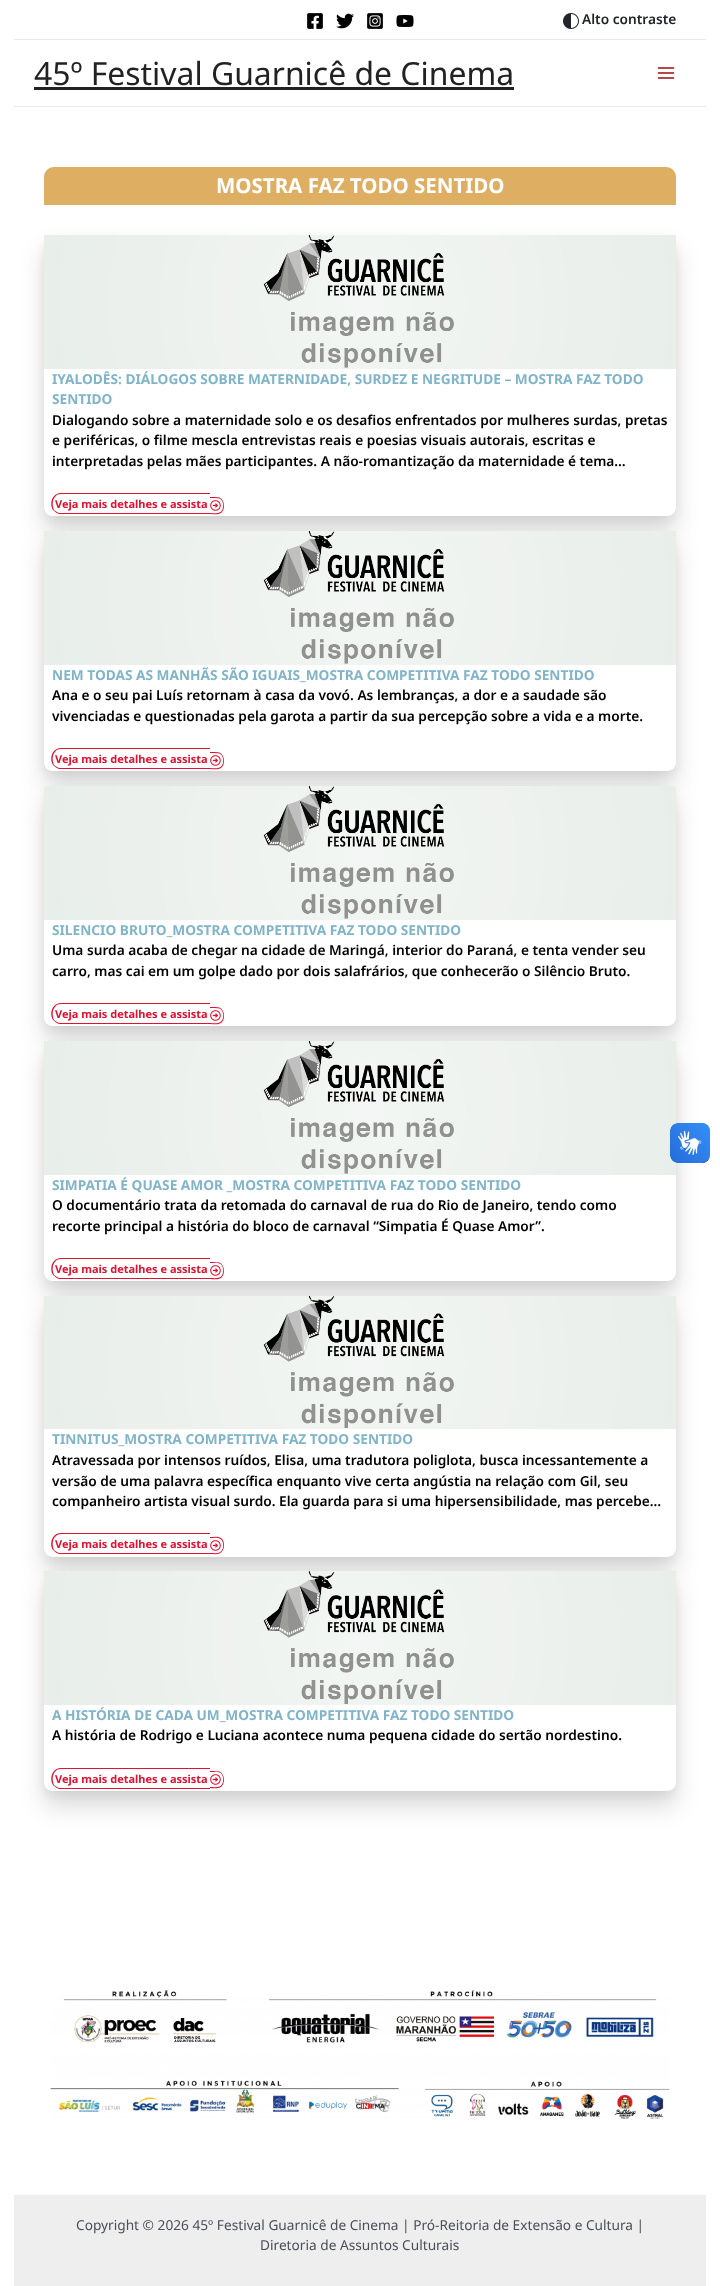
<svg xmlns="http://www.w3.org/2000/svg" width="720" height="2286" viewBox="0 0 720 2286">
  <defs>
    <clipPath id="clip1"><path d="M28 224H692V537H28ZM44 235H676V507C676 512 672 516 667 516H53C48 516 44 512 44 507Z" clip-rule="evenodd"/></clipPath>
    <filter id="blur1" x="-50%" y="-200%" width="200%" height="500%"><feGaussianBlur stdDeviation="5"/></filter>
    <clipPath id="clip2"><path d="M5 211H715V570H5ZM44 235H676V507C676 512 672 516 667 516H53C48 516 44 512 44 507Z" clip-rule="evenodd"/></clipPath>
    <filter id="blur2" x="-50%" y="-200%" width="200%" height="500%"><feGaussianBlur stdDeviation="12.5"/></filter>
    <clipPath id="clip3"><path d="M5 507H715V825H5ZM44 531H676V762C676 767 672 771 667 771H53C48 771 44 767 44 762Z" clip-rule="evenodd"/></clipPath>
    <clipPath id="clip4"><path d="M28 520H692V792H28ZM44 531H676V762C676 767 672 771 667 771H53C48 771 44 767 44 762Z" clip-rule="evenodd"/></clipPath>
    <clipPath id="clip5"><path d="M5 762H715V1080H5ZM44 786H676V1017C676 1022 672 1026 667 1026H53C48 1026 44 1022 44 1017Z" clip-rule="evenodd"/></clipPath>
    <clipPath id="clip6"><path d="M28 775H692V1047H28ZM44 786H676V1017C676 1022 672 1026 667 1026H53C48 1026 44 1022 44 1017Z" clip-rule="evenodd"/></clipPath>
    <clipPath id="clip7"><path d="M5 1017H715V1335H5ZM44 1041H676V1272C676 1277 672 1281 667 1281H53C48 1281 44 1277 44 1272Z" clip-rule="evenodd"/></clipPath>
    <clipPath id="clip8"><path d="M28 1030H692V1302H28ZM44 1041H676V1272C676 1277 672 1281 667 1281H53C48 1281 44 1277 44 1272Z" clip-rule="evenodd"/></clipPath>
    <clipPath id="clip9"><path d="M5 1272H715V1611H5ZM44 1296H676V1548C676 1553 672 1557 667 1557H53C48 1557 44 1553 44 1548Z" clip-rule="evenodd"/></clipPath>
    <clipPath id="clip10"><path d="M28 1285H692V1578H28ZM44 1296H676V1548C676 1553 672 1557 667 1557H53C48 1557 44 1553 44 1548Z" clip-rule="evenodd"/></clipPath>
    <clipPath id="clip11"><path d="M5 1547H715V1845H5ZM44 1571H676V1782C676 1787 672 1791 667 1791H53C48 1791 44 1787 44 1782Z" clip-rule="evenodd"/></clipPath>
    <clipPath id="clip12"><path d="M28 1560H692V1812H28ZM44 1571H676V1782C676 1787 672 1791 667 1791H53C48 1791 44 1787 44 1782Z" clip-rule="evenodd"/></clipPath>
  </defs>
  <rect width="100%" height="100%" fill="#ffffff"/>
  <rect x="14" y="39" width="692" height="1" fill="#eaeaea"/>
  <image x="307" y="13" width="16" height="16" href="img1.png"/>
  <image x="336" y="13" width="18" height="16" href="img2.png"/>
  <image x="367" y="13" width="16" height="16" href="img3.png"/>
  <image x="396" y="15" width="18" height="12" href="img4.png"/>
  <image x="563" y="13" width="16" height="16" href="img5.png"/>
  <text x="582" y="24" font-family="Noto Sans" font-size="13.7" font-weight="600" fill="#212529">Alto contraste</text>
  <rect x="14" y="106" width="692" height="1" fill="#eaeaea"/>
  <text x="34" y="85" font-family="Noto Sans" font-size="31.9" fill="#222222">45º Festival Guarnicê de Cinema</text>
  <rect x="34" y="87" width="480" height="3" fill="#222222"/>
  <image x="657" y="67" width="18" height="12" href="img6.png"/>
  <path d="M54 167H666C671.5 167 676 171.5 676 177V205H44V177C44 171.5 48.5 167 54 167Z" fill="#deaf63"/>
  <text x="216" y="193" font-family="Noto Sans" font-size="20.5" font-weight="bold" fill="#ffffff">MOSTRA FAZ TODO SENTIDO</text>
  <g clip-path="url(#clip1)">
    <rect x="44" y="240" width="632" height="281" rx="9" fill="#000000" fill-opacity="0.05" filter="url(#blur1)"/>
  </g>
  <g clip-path="url(#clip2)">
    <rect x="44" y="250" width="632" height="281" rx="9" fill="#000000" fill-opacity="0.15" filter="url(#blur2)"/>
  </g>
  <image x="44" y="235" width="632" height="134" href="img7.png"/>
  <text x="52" y="384" font-family="Noto Sans" font-size="13.7" font-weight="bold" fill="#80b5c9">IYALODÊS: DIÁLOGOS SOBRE MATERNIDADE, SURDEZ E NEGRITUDE – MOSTRA FAZ TODO</text>
  <text x="52" y="404" font-family="Noto Sans" font-size="13.7" font-weight="bold" fill="#80b5c9">SENTIDO</text>
  <text x="52" y="425" font-family="Noto Sans" font-size="13.7" font-weight="600" fill="#000000">Dialogando sobre a maternidade solo e os desafios enfrentados por mulheres surdas, pretas</text>
  <text x="52" y="445" font-family="Noto Sans" font-size="13.7" font-weight="600" fill="#000000">e periféricas, o filme mescla entrevistas reais e poesias visuais autorais, escritas e</text>
  <text x="52" y="466" font-family="Noto Sans" font-size="13.7" font-weight="600" fill="#000000">interpretadas pelas mães participantes. A não-romantização da maternidade é tema…</text>
  <path d="M61 493H207V514H59C57 513 55 512 53 510C49 504 52 493 61 493ZM61 494H207V513H59C57 512 55 511 54 510C51 504 53 494 61 494Z" fill="#e01131" fill-rule="evenodd"/>
  <text x="55" y="508" font-family="Noto Sans" font-size="11" font-weight="bold" fill="#e01131">Veja mais detalhes e assista</text>
  <rect x="207" y="493" width="3" height="1" fill="#e01131"/>
  <rect x="207" y="513" width="3" height="1" fill="#e01131"/>
  <path d="M210 497C213 497 217 496.5 219.5 497.5C225 500 225.5 509.5 221 513C218 515 213.5 514 210 514ZM210 498C213 498 216.5 497.5 219.5 498.5C224 500.5 224.5 509 220.5 512C217.5 514 213 513 210 513Z" fill="#e01131" fill-rule="evenodd"/>
  <g clip-path="url(#clip3)">
    <rect x="44" y="546" width="632" height="240" rx="9" fill="#000000" fill-opacity="0.15" filter="url(#blur2)"/>
  </g>
  <image x="210" y="500" width="11" height="11" href="img8.png"/>
  <g clip-path="url(#clip4)">
    <rect x="44" y="536" width="632" height="240" rx="9" fill="#000000" fill-opacity="0.05" filter="url(#blur1)"/>
  </g>
  <image x="44" y="531" width="632" height="134" href="img7.png"/>
  <text x="52" y="680" font-family="Noto Sans" font-size="13.7" font-weight="bold" fill="#80b5c9">NEM TODAS AS MANHÃS SÃO IGUAIS_MOSTRA COMPETITIVA FAZ TODO SENTIDO</text>
  <text x="52" y="700" font-family="Noto Sans" font-size="13.7" font-weight="600" fill="#000000">Ana e o seu pai Luís retornam à casa da vovó. As lembranças, a dor e a saudade são</text>
  <text x="52" y="721" font-family="Noto Sans" font-size="13.7" font-weight="600" fill="#000000">vivenciadas e questionadas pela garota a partir da sua percepção sobre a vida e a morte.</text>
  <path d="M61 748H207V769H59C57 768 55 767 53 765C49 759 52 748 61 748ZM61 749H207V768H59C57 767 55 766 54 765C51 759 53 749 61 749Z" fill="#e01131" fill-rule="evenodd"/>
  <text x="55" y="763" font-family="Noto Sans" font-size="11" font-weight="bold" fill="#e01131">Veja mais detalhes e assista</text>
  <rect x="207" y="748" width="3" height="1" fill="#e01131"/>
  <rect x="207" y="768" width="3" height="1" fill="#e01131"/>
  <path d="M210 752C213 752 217 751.5 219.5 752.5C225 755 225.5 764.5 221 768C218 770 213.5 769 210 769ZM210 753C213 753 216.5 752.5 219.5 753.5C224 755.5 224.5 764 220.5 767C217.5 769 213 768 210 768Z" fill="#e01131" fill-rule="evenodd"/>
  <g clip-path="url(#clip5)">
    <rect x="44" y="801" width="632" height="240" rx="9" fill="#000000" fill-opacity="0.15" filter="url(#blur2)"/>
  </g>
  <image x="210" y="755" width="11" height="11" href="img8.png"/>
  <g clip-path="url(#clip6)">
    <rect x="44" y="791" width="632" height="240" rx="9" fill="#000000" fill-opacity="0.05" filter="url(#blur1)"/>
  </g>
  <image x="44" y="786" width="632" height="134" href="img7.png"/>
  <text x="52" y="935" font-family="Noto Sans" font-size="13.7" font-weight="bold" fill="#80b5c9">SILENCIO BRUTO_MOSTRA COMPETITIVA FAZ TODO SENTIDO</text>
  <text x="52" y="955" font-family="Noto Sans" font-size="13.7" font-weight="600" fill="#000000">Uma surda acaba de chegar na cidade de Maringá, interior do Paraná, e tenta vender seu</text>
  <text x="52" y="976" font-family="Noto Sans" font-size="13.7" font-weight="600" fill="#000000">carro, mas cai em um golpe dado por dois salafrários, que conhecerão o Silêncio Bruto.</text>
  <path d="M61 1003H207V1024H59C57 1023 55 1022 53 1020C49 1014 52 1003 61 1003ZM61 1004H207V1023H59C57 1022 55 1021 54 1020C51 1014 53 1004 61 1004Z" fill="#e01131" fill-rule="evenodd"/>
  <text x="55" y="1018" font-family="Noto Sans" font-size="11" font-weight="bold" fill="#e01131">Veja mais detalhes e assista</text>
  <rect x="207" y="1003" width="3" height="1" fill="#e01131"/>
  <rect x="207" y="1023" width="3" height="1" fill="#e01131"/>
  <path d="M210 1007C213 1007 217 1006.5 219.5 1007.5C225 1010 225.5 1019.5 221 1023C218 1025 213.5 1024 210 1024ZM210 1008C213 1008 216.5 1007.5 219.5 1008.5C224 1010.5 224.5 1019 220.5 1022C217.5 1024 213 1023 210 1023Z" fill="#e01131" fill-rule="evenodd"/>
  <g clip-path="url(#clip7)">
    <rect x="44" y="1056" width="632" height="240" rx="9" fill="#000000" fill-opacity="0.15" filter="url(#blur2)"/>
  </g>
  <image x="210" y="1010" width="11" height="11" href="img8.png"/>
  <g clip-path="url(#clip8)">
    <rect x="44" y="1046" width="632" height="240" rx="9" fill="#000000" fill-opacity="0.05" filter="url(#blur1)"/>
  </g>
  <image x="44" y="1041" width="632" height="134" href="img7.png"/>
  <text x="52" y="1190" font-family="Noto Sans" font-size="13.7" font-weight="bold" fill="#80b5c9">SIMPATIA É QUASE AMOR _MOSTRA COMPETITIVA FAZ TODO SENTIDO</text>
  <text x="52" y="1210" font-family="Noto Sans" font-size="13.7" font-weight="600" fill="#000000">O documentário trata da retomada do carnaval de rua do Rio de Janeiro, tendo como</text>
  <text x="52" y="1231" font-family="Noto Sans" font-size="13.7" font-weight="600" fill="#000000">recorte principal a história do bloco de carnaval “Simpatia É Quase Amor”.</text>
  <path d="M61 1258H207V1279H59C57 1278 55 1277 53 1275C49 1269 52 1258 61 1258ZM61 1259H207V1278H59C57 1277 55 1276 54 1275C51 1269 53 1259 61 1259Z" fill="#e01131" fill-rule="evenodd"/>
  <text x="55" y="1273" font-family="Noto Sans" font-size="11" font-weight="bold" fill="#e01131">Veja mais detalhes e assista</text>
  <rect x="207" y="1258" width="3" height="1" fill="#e01131"/>
  <rect x="207" y="1278" width="3" height="1" fill="#e01131"/>
  <path d="M210 1262C213 1262 217 1261.5 219.5 1262.5C225 1265 225.5 1274.5 221 1278C218 1280 213.5 1279 210 1279ZM210 1263C213 1263 217.5 1262 220.5 1264C224.5 1267 224 1275.5 219.5 1277.5C216.5 1278.5 213 1278 210 1278Z" fill="#e01131" fill-rule="evenodd"/>
  <g clip-path="url(#clip9)">
    <rect x="44" y="1311" width="632" height="261" rx="9" fill="#000000" fill-opacity="0.15" filter="url(#blur2)"/>
  </g>
  <image x="210" y="1265" width="11" height="11" href="img8.png"/>
  <g clip-path="url(#clip10)">
    <rect x="44" y="1301" width="632" height="261" rx="9" fill="#000000" fill-opacity="0.05" filter="url(#blur1)"/>
  </g>
  <image x="44" y="1296" width="632" height="133" href="img9.png"/>
  <text x="52" y="1444" font-family="Noto Sans" font-size="13.7" font-weight="bold" fill="#80b5c9">TINNITUS_MOSTRA COMPETITIVA FAZ TODO SENTIDO</text>
  <text x="52" y="1465" font-family="Noto Sans" font-size="13.7" font-weight="600" fill="#000000">Atravessada por intensos ruídos, Elisa, uma tradutora poliglota, busca incessantemente a</text>
  <text x="52" y="1486" font-family="Noto Sans" font-size="13.7" font-weight="600" fill="#000000">versão de uma palavra específica enquanto vive certa angústia na relação com Gil, seu</text>
  <text x="52" y="1506" font-family="Noto Sans" font-size="13.7" font-weight="600" fill="#000000">companheiro artista visual surdo. Ela guarda para si uma hipersensibilidade, mas percebe…</text>
  <path d="M61 1533H207V1554H59C57 1553 55 1552 53 1550C49 1544 52 1533 61 1533ZM61 1534H207V1553H59C57 1552 55 1551 54 1550C51 1544 53 1534 61 1534Z" fill="#e01131" fill-rule="evenodd"/>
  <text x="55" y="1548" font-family="Noto Sans" font-size="11" font-weight="bold" fill="#e01131">Veja mais detalhes e assista</text>
  <rect x="207" y="1533" width="3" height="1" fill="#e01131"/>
  <rect x="207" y="1553" width="3" height="1" fill="#e01131"/>
  <path d="M210 1537C213.5 1537 218 1536 221 1538C225.5 1541.5 225 1551 219.5 1553.5C217 1554.5 213 1554 210 1554ZM210 1538C213 1538 217.5 1537 220.5 1539C224.5 1542 224 1550.5 219.5 1552.5C216.5 1553.5 213 1553 210 1553Z" fill="#e01131" fill-rule="evenodd"/>
  <g clip-path="url(#clip11)">
    <rect x="44" y="1586" width="632" height="220" rx="9" fill="#000000" fill-opacity="0.15" filter="url(#blur2)"/>
  </g>
  <image x="210" y="1540" width="11" height="11" href="img8.png"/>
  <g clip-path="url(#clip12)">
    <rect x="44" y="1576" width="632" height="220" rx="9" fill="#000000" fill-opacity="0.05" filter="url(#blur1)"/>
  </g>
  <image x="44" y="1571" width="632" height="134" href="img10.png"/>
  <text x="52" y="1720" font-family="Noto Sans" font-size="13.7" font-weight="bold" fill="#80b5c9">A HISTÓRIA DE CADA UM_MOSTRA COMPETITIVA FAZ TODO SENTIDO</text>
  <text x="52" y="1740" font-family="Noto Sans" font-size="13.7" font-weight="600" fill="#000000">A história de Rodrigo e Luciana acontece numa pequena cidade do sertão nordestino.</text>
  <path d="M61 1768H207V1789H59C57 1788 55 1787 53 1785C49 1779 52 1768 61 1768ZM61 1769H207V1788H59C57 1787 55 1786 54 1785C51 1779 53 1769 61 1769Z" fill="#e01131" fill-rule="evenodd"/>
  <text x="55" y="1783" font-family="Noto Sans" font-size="11" font-weight="bold" fill="#e01131">Veja mais detalhes e assista</text>
  <rect x="207" y="1768" width="3" height="1" fill="#e01131"/>
  <rect x="207" y="1788" width="3" height="1" fill="#e01131"/>
  <path d="M210 1771C213 1771 217 1770.5 219.5 1771.5C225 1774 225.5 1783.5 221 1787C218 1789 213.5 1788 210 1788ZM210 1772C213 1772 217.5 1771 220.5 1773C224.5 1776 224 1784.5 219.5 1786.5C216.5 1787.5 213 1787 210 1787Z" fill="#e01131" fill-rule="evenodd"/>
  <image x="210" y="1774" width="11" height="11" href="img11.png"/>
  <image x="50" y="1990" width="620" height="129" href="img12.png"/>
  <rect x="14" y="2195" width="692" height="91" fill="#eeeeee"/>
  <text x="76" y="2230" font-family="Noto Sans" font-size="13.7" fill="#4b4f58">Copyright © 2026 45º Festival Guarnicê de Cinema | Pró-Reitoria de Extensão e Cultura |</text>
  <text x="260" y="2250" font-family="Noto Sans" font-size="13.7" fill="#4b4f58">Diretoria de Assuntos Culturais</text>
  <image x="670" y="1123" width="40" height="40" href="img13.png"/>
  <image x="670" y="1123" width="40" height="40" href="img14.png"/>
</svg>
